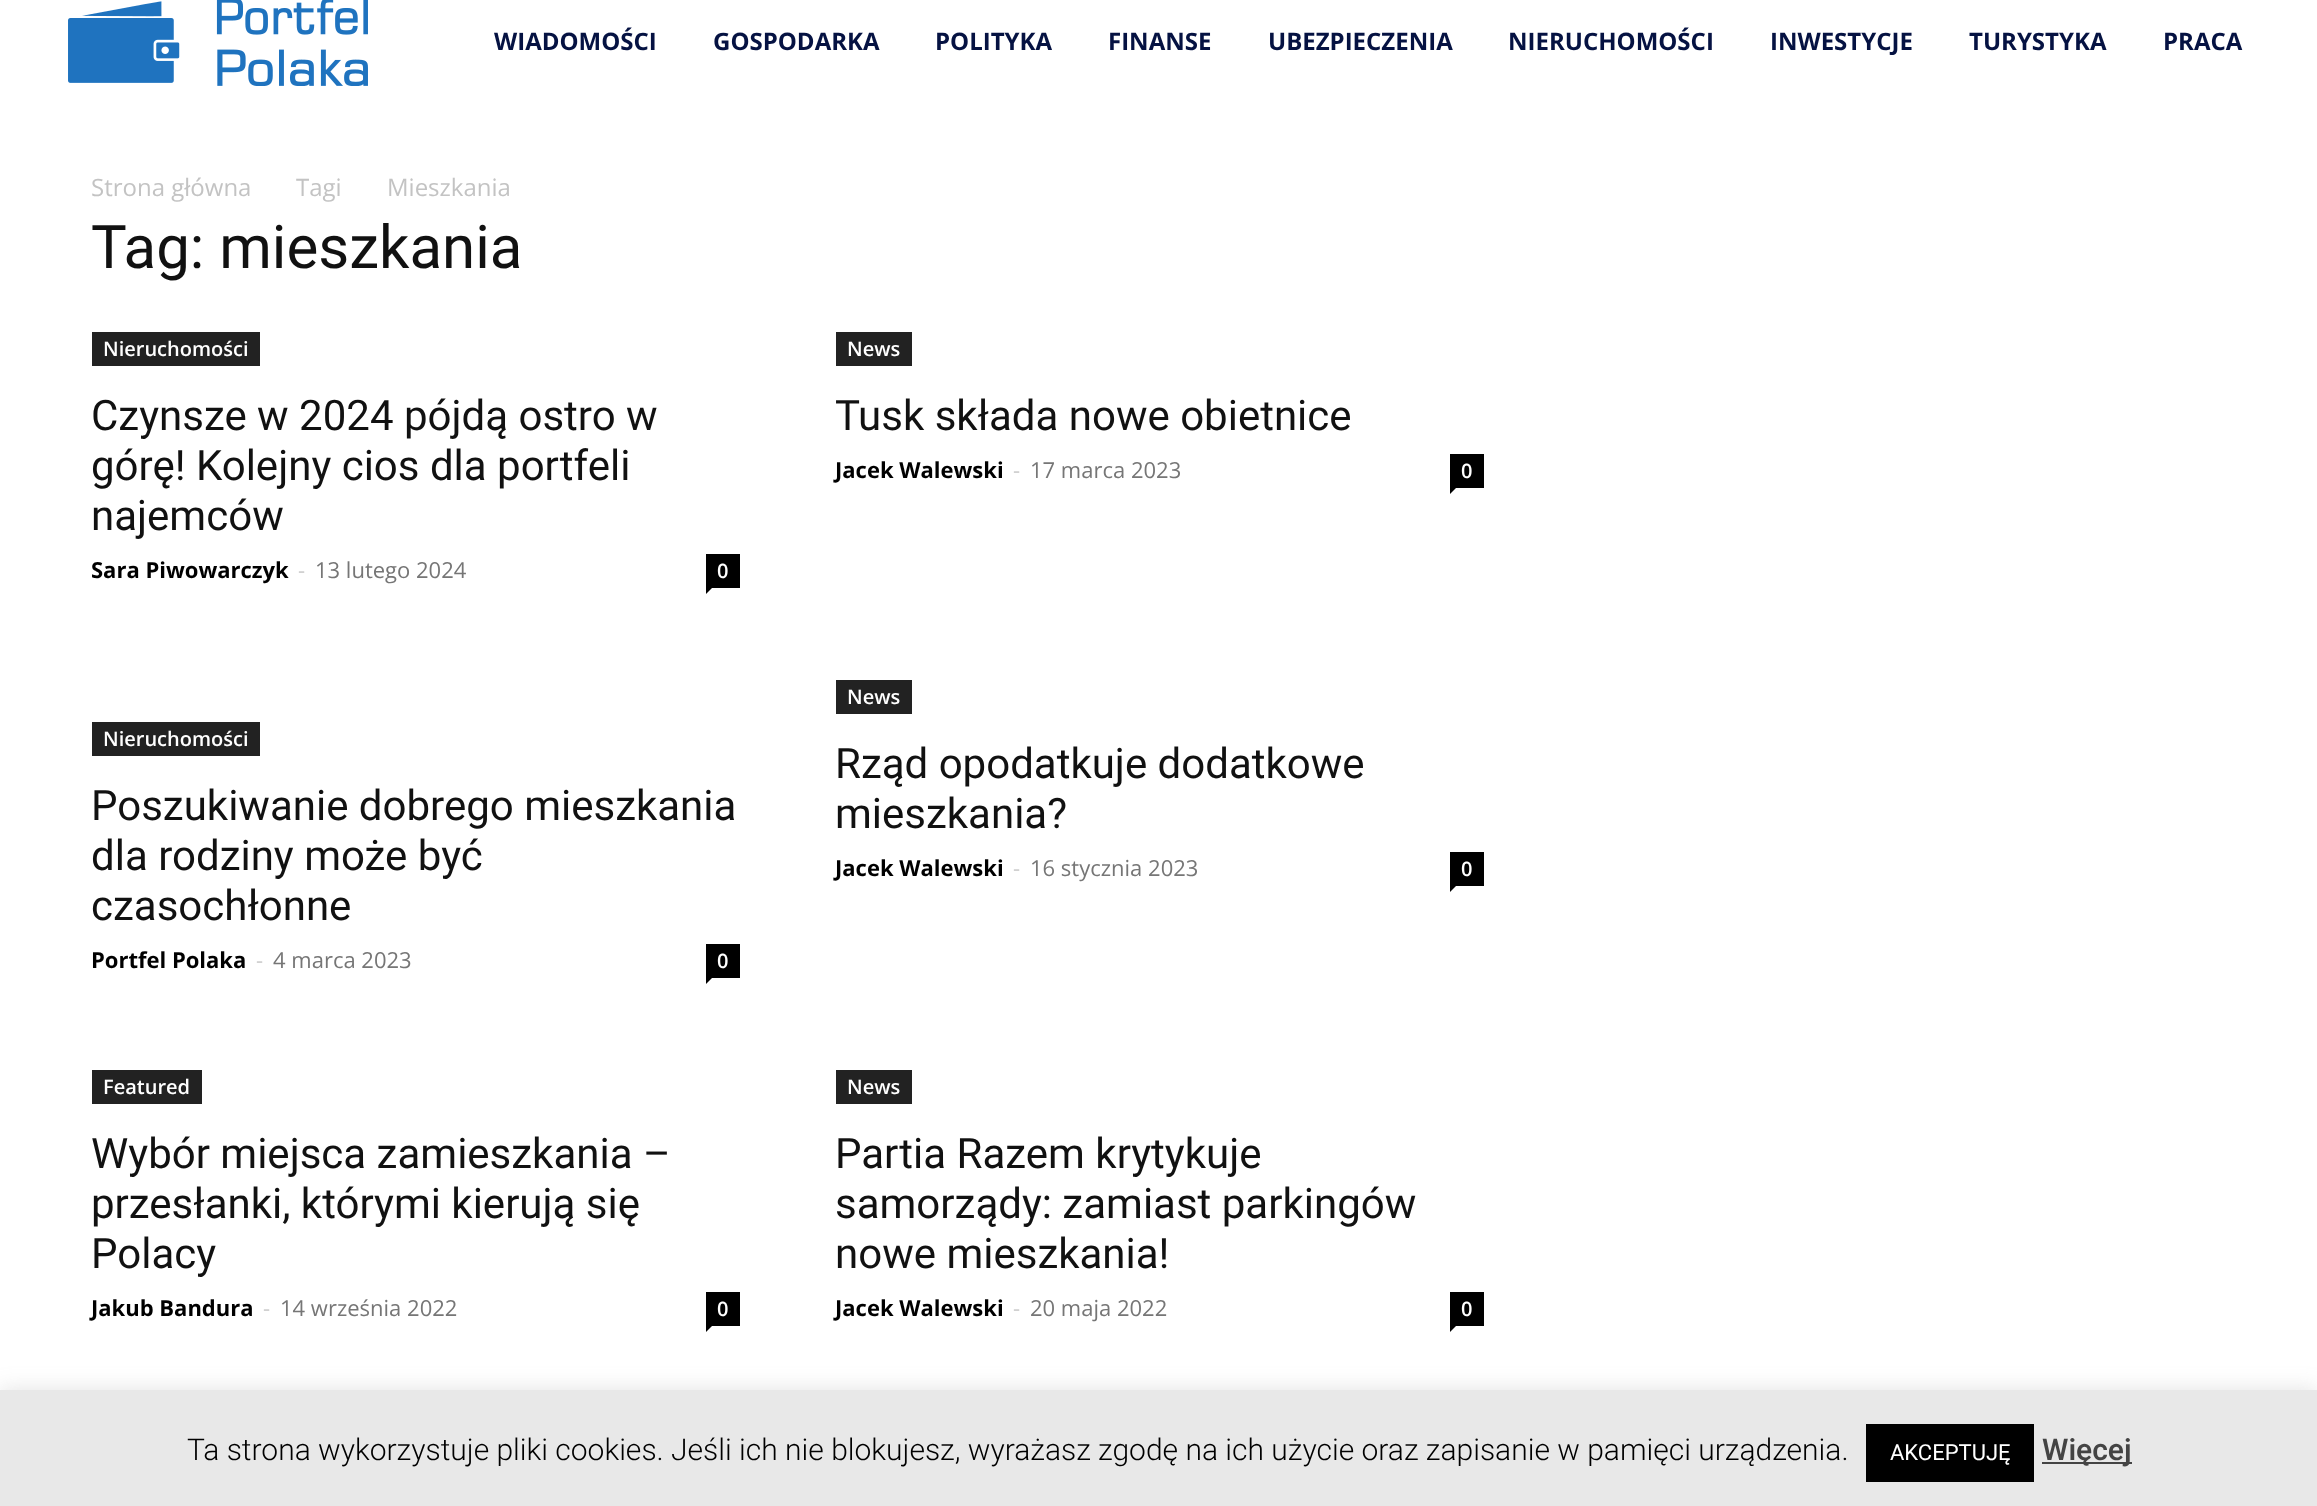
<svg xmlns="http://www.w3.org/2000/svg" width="2317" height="1506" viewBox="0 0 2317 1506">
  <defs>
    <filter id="blur1" x="-50%" y="-200%" width="200%" height="500%"><feGaussianBlur stdDeviation="10"/></filter>
  </defs>
  <rect width="100%" height="100%" fill="#ffffff"/>
  <image x="68" y="0" width="300" height="86" href="img1.png"/>
  <text x="494" y="50" font-family="Open Sans" font-size="24" font-weight="bold" fill="#051242">WIADOMOŚCI</text>
  <text x="713" y="50" font-family="Open Sans" font-size="24" font-weight="bold" fill="#051242">GOSPODARKA</text>
  <text x="935" y="50" font-family="Open Sans" font-size="24" font-weight="bold" fill="#051242">POLITYKA</text>
  <text x="1108" y="50" font-family="Open Sans" font-size="24" font-weight="bold" fill="#051242">FINANSE</text>
  <text x="1268" y="50" font-family="Open Sans" font-size="24" font-weight="bold" fill="#051242">UBEZPIECZENIA</text>
  <text x="1508" y="50" font-family="Open Sans" font-size="24" font-weight="bold" fill="#051242">NIERUCHOMOŚCI</text>
  <text x="1770" y="50" font-family="Open Sans" font-size="24" font-weight="bold" fill="#051242">INWESTYCJE</text>
  <text x="1969" y="50" font-family="Open Sans" font-size="24" font-weight="bold" fill="#051242">TURYSTYKA</text>
  <text x="2163" y="50" font-family="Open Sans" font-size="24" font-weight="bold" fill="#051242">PRACA</text>
  <text x="91" y="196" font-family="Open Sans" font-size="24" fill="#c3c3c3">Strona główna</text>
  <text x="296" y="196" font-family="Open Sans" font-size="24" fill="#c3c3c3">Tagi</text>
  <text x="387" y="196" font-family="Open Sans" font-size="24" fill="#c3c3c3">Mieszkania</text>
  <text x="91" y="268" font-family="Roboto" font-size="60" fill="#111111">Tag: mieszkania</text>
  <rect x="92" y="332" width="168" height="34" fill="#222222"/>
  <text x="103" y="356" font-family="Open Sans" font-size="20" font-weight="600" fill="#ffffff">Nieruchomości</text>
  <text x="91" y="430" font-family="Roboto" font-size="42" fill="#111111">Czynsze w 2024 pójdą ostro w</text>
  <text x="91" y="480" font-family="Roboto" font-size="42" fill="#111111">górę! Kolejny cios dla portfeli</text>
  <text x="91" y="530" font-family="Roboto" font-size="42" fill="#111111">najemców</text>
  <text x="91" y="578" font-family="Open Sans" font-size="22" font-weight="bold" fill="#000000">Sara Piwowarczyk</text>
  <text x="298" y="578" font-family="Open Sans" font-size="22" fill="#cccccc">-</text>
  <text x="315" y="578" font-family="Open Sans" font-size="22" fill="#767676">13 lutego 2024</text>
  <rect x="706" y="554" width="34" height="34" fill="#000000"/>
  <text x="717" y="578" font-family="Open Sans" font-size="20" font-weight="600" fill="#ffffff">0</text>
  <path d="M706 588H712L706 594Z" fill="#000000"/>
  <rect x="836" y="332" width="76" height="34" fill="#222222"/>
  <text x="847" y="356" font-family="Open Sans" font-size="20" font-weight="600" fill="#ffffff">News</text>
  <text x="835" y="430" font-family="Roboto" font-size="42" fill="#111111">Tusk składa nowe obietnice</text>
  <text x="835" y="478" font-family="Open Sans" font-size="22" font-weight="bold" fill="#000000">Jacek Walewski</text>
  <text x="1013" y="478" font-family="Open Sans" font-size="22" fill="#cccccc">-</text>
  <text x="1030" y="478" font-family="Open Sans" font-size="22" fill="#767676">17 marca 2023</text>
  <rect x="1450" y="454" width="34" height="34" fill="#000000"/>
  <text x="1461" y="478" font-family="Open Sans" font-size="20" font-weight="600" fill="#ffffff">0</text>
  <path d="M1450 488H1456L1450 494Z" fill="#000000"/>
  <rect x="92" y="722" width="168" height="34" fill="#222222"/>
  <text x="103" y="746" font-family="Open Sans" font-size="20" font-weight="600" fill="#ffffff">Nieruchomości</text>
  <text x="91" y="820" font-family="Roboto" font-size="42" fill="#111111">Poszukiwanie dobrego mieszkania</text>
  <text x="91" y="870" font-family="Roboto" font-size="42" fill="#111111">dla rodziny może być</text>
  <text x="91" y="920" font-family="Roboto" font-size="42" fill="#111111">czasochłonne</text>
  <text x="91" y="968" font-family="Open Sans" font-size="22" font-weight="bold" fill="#000000">Portfel Polaka</text>
  <text x="256" y="968" font-family="Open Sans" font-size="22" fill="#cccccc">-</text>
  <text x="273" y="968" font-family="Open Sans" font-size="22" fill="#767676">4 marca 2023</text>
  <rect x="706" y="944" width="34" height="34" fill="#000000"/>
  <text x="717" y="968" font-family="Open Sans" font-size="20" font-weight="600" fill="#ffffff">0</text>
  <path d="M706 978H712L706 984Z" fill="#000000"/>
  <rect x="836" y="680" width="76" height="34" fill="#222222"/>
  <text x="847" y="704" font-family="Open Sans" font-size="20" font-weight="600" fill="#ffffff">News</text>
  <text x="835" y="778" font-family="Roboto" font-size="42" fill="#111111">Rząd opodatkuje dodatkowe</text>
  <text x="835" y="828" font-family="Roboto" font-size="42" fill="#111111">mieszkania?</text>
  <text x="835" y="876" font-family="Open Sans" font-size="22" font-weight="bold" fill="#000000">Jacek Walewski</text>
  <text x="1013" y="876" font-family="Open Sans" font-size="22" fill="#cccccc">-</text>
  <text x="1030" y="876" font-family="Open Sans" font-size="22" fill="#767676">16 stycznia 2023</text>
  <rect x="1450" y="852" width="34" height="34" fill="#000000"/>
  <text x="1461" y="876" font-family="Open Sans" font-size="20" font-weight="600" fill="#ffffff">0</text>
  <path d="M1450 886H1456L1450 892Z" fill="#000000"/>
  <rect x="92" y="1070" width="110" height="34" fill="#222222"/>
  <text x="103" y="1094" font-family="Open Sans" font-size="20" font-weight="600" fill="#ffffff">Featured</text>
  <text x="91" y="1168" font-family="Roboto" font-size="42" fill="#111111">Wybór miejsca zamieszkania –</text>
  <text x="91" y="1218" font-family="Roboto" font-size="42" fill="#111111">przesłanki, którymi kierują się</text>
  <text x="91" y="1268" font-family="Roboto" font-size="42" fill="#111111">Polacy</text>
  <text x="91" y="1316" font-family="Open Sans" font-size="22" font-weight="bold" fill="#000000">Jakub Bandura</text>
  <text x="263" y="1316" font-family="Open Sans" font-size="22" fill="#cccccc">-</text>
  <text x="280" y="1316" font-family="Open Sans" font-size="22" fill="#767676">14 września 2022</text>
  <rect x="706" y="1292" width="34" height="34" fill="#000000"/>
  <text x="717" y="1316" font-family="Open Sans" font-size="20" font-weight="600" fill="#ffffff">0</text>
  <path d="M706 1326H712L706 1332Z" fill="#000000"/>
  <rect x="836" y="1070" width="76" height="34" fill="#222222"/>
  <text x="847" y="1094" font-family="Open Sans" font-size="20" font-weight="600" fill="#ffffff">News</text>
  <text x="835" y="1168" font-family="Roboto" font-size="42" fill="#111111">Partia Razem krytykuje</text>
  <text x="835" y="1218" font-family="Roboto" font-size="42" fill="#111111">samorządy: zamiast parkingów</text>
  <text x="835" y="1268" font-family="Roboto" font-size="42" fill="#111111">nowe mieszkania!</text>
  <text x="835" y="1316" font-family="Open Sans" font-size="22" font-weight="bold" fill="#000000">Jacek Walewski</text>
  <text x="1013" y="1316" font-family="Open Sans" font-size="22" fill="#cccccc">-</text>
  <text x="1030" y="1316" font-family="Open Sans" font-size="22" fill="#767676">20 maja 2022</text>
  <rect x="1450" y="1292" width="34" height="34" fill="#000000"/>
  <text x="1461" y="1316" font-family="Open Sans" font-size="20" font-weight="600" fill="#ffffff">0</text>
  <path d="M1450 1326H1456L1450 1332Z" fill="#000000"/>
  <rect x="0" y="1388" width="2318" height="116" fill="#acabab" fill-opacity="0.3" filter="url(#blur1)"/>
  <rect x="0" y="1390" width="2317" height="116" fill="#e8e8e8"/>
  <text x="187" y="1460" font-family="Roboto" font-size="30" font-weight="300" fill="#000000">Ta strona wykorzystuje pliki cookies. Jeśli ich nie blokujesz, wyrażasz zgodę na ich użycie oraz zapisanie w pamięci urządzenia.</text>
  <rect x="1866" y="1424" width="168" height="58" fill="#000000"/>
  <text x="1890" y="1460" font-family="Roboto" font-size="22" fill="#ffffff">AKCEPTUJĘ</text>
  <rect x="2042" y="1462" width="90" height="2" fill="#444444"/>
  <text x="2042" y="1460" font-family="Roboto" font-size="30" font-weight="500" fill="#444444">Więcej</text>
</svg>
